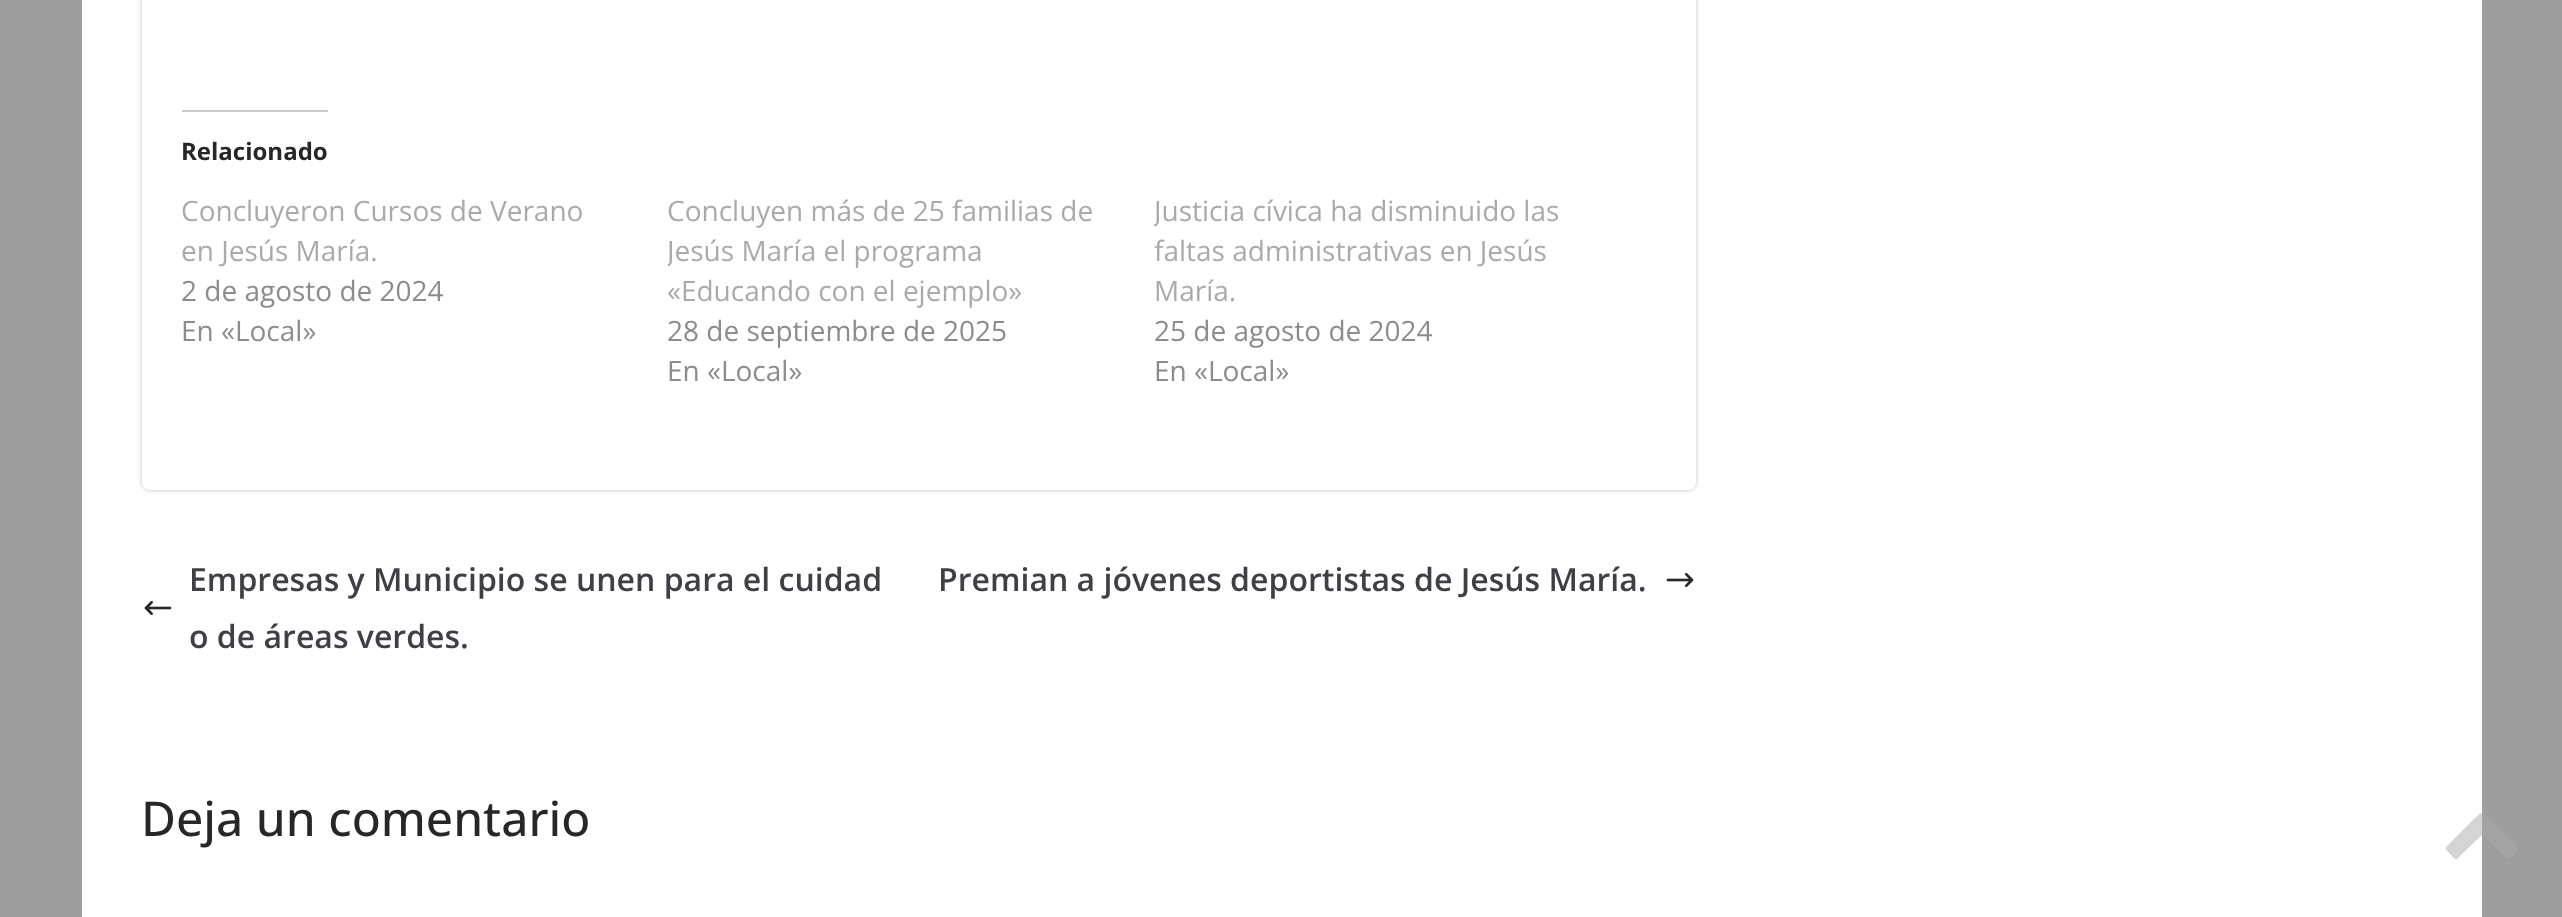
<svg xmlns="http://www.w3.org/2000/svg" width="2562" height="917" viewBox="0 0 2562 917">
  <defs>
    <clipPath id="clip1"><path d="M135 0H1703V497H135ZM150-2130H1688C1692.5-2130 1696-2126.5 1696-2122V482C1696 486.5 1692.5 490 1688 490H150C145.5 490 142 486.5 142 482V-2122C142-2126.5 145.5-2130 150-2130Z" clip-rule="evenodd"/></clipPath>
    <filter id="blur1" x="-50%" y="-200%" width="200%" height="500%"><feGaussianBlur stdDeviation="2"/></filter>
    <clipPath id="clip2"><rect x="668" y="190" width="438" height="120"/></clipPath>
    <clipPath id="clip3"><rect x="1154" y="190" width="438" height="120"/></clipPath>
  </defs>
  <rect width="100%" height="100%" fill="#9e9e9e"/>
  <rect x="82" y="0" width="2400" height="917" fill="#ffffff"/>
  <g clip-path="url(#clip1)">
    <rect x="142" y="-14" width="1554" height="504" rx="8" fill="#000000" fill-opacity="0.24" filter="url(#blur1)"/>
  </g>
  <rect x="182" y="110" width="146" height="2" fill="#cccccc"/>
  <text x="181" y="160" font-family="Open Sans" font-size="24" font-weight="bold" fill="#27272a">Relacionado</text>
  <text x="181" y="221" font-family="Open Sans" font-size="28" fill="#aaaaaa">Concluyeron Cursos de Verano</text>
  <text x="181" y="261" font-family="Open Sans" font-size="28" fill="#aaaaaa">en Jesús María.</text>
  <text x="181" y="301" font-family="Open Sans" font-size="28" fill="#8c8c90">2 de agosto de 2024</text>
  <text x="181" y="341" font-family="Open Sans" font-size="28" fill="#8c8c90">En «Local»</text>
  <text x="667" y="221" font-family="Open Sans" font-size="28" fill="#aaaaaa">Concluyen más de 25 familias de</text>
  <g clip-path="url(#clip2)">
    <text x="667" y="261" font-family="Open Sans" font-size="28" fill="#aaaaaa">Jesús María el programa</text>
  </g>
  <text x="667" y="301" font-family="Open Sans" font-size="28" fill="#aaaaaa">«Educando con el ejemplo»</text>
  <text x="667" y="341" font-family="Open Sans" font-size="28" fill="#8c8c90">28 de septiembre de 2025</text>
  <text x="667" y="381" font-family="Open Sans" font-size="28" fill="#8c8c90">En «Local»</text>
  <g clip-path="url(#clip3)">
    <text x="1154" y="221" font-family="Open Sans" font-size="28" fill="#aaaaaa">Justicia cívica ha disminuido las</text>
  </g>
  <text x="1154" y="261" font-family="Open Sans" font-size="28" fill="#aaaaaa">faltas administrativas en Jesús</text>
  <text x="1154" y="301" font-family="Open Sans" font-size="28" fill="#aaaaaa">María.</text>
  <text x="1154" y="341" font-family="Open Sans" font-size="28" fill="#8c8c90">25 de agosto de 2024</text>
  <text x="1154" y="381" font-family="Open Sans" font-size="28" fill="#8c8c90">En «Local»</text>
  <text x="189" y="591" font-family="Open Sans" font-size="32" font-weight="600" fill="#3f3f46">Empresas y Municipio se unen para el cuidad</text>
  <image x="144" y="601" width="28" height="14" href="img1.png"/>
  <text x="189" y="648" font-family="Open Sans" font-size="32" font-weight="600" fill="#3f3f46">o de áreas verdes.</text>
  <text x="938" y="591" font-family="Open Sans" font-size="32" font-weight="600" fill="#3f3f46">Premian a jóvenes deportistas de Jesús María.</text>
  <image x="1666" y="573" width="28" height="14" href="img2.png"/>
  <text x="141" y="836" font-family="Open Sans" font-size="48" font-weight="500" fill="#27272a">Deja un comentario</text>
  <path d="M2517 851L2511 857C2507 861 2506 858 2502 854L2482 835L2462 854C2455 862 2456 860 2448 852C2443 847 2448 846 2452 841L2474 819C2483 811 2481 811 2490 819L2512 841C2513 842 2521 847 2517 851Z" fill="#aaaaaa" fill-opacity="0.5"/>
</svg>
